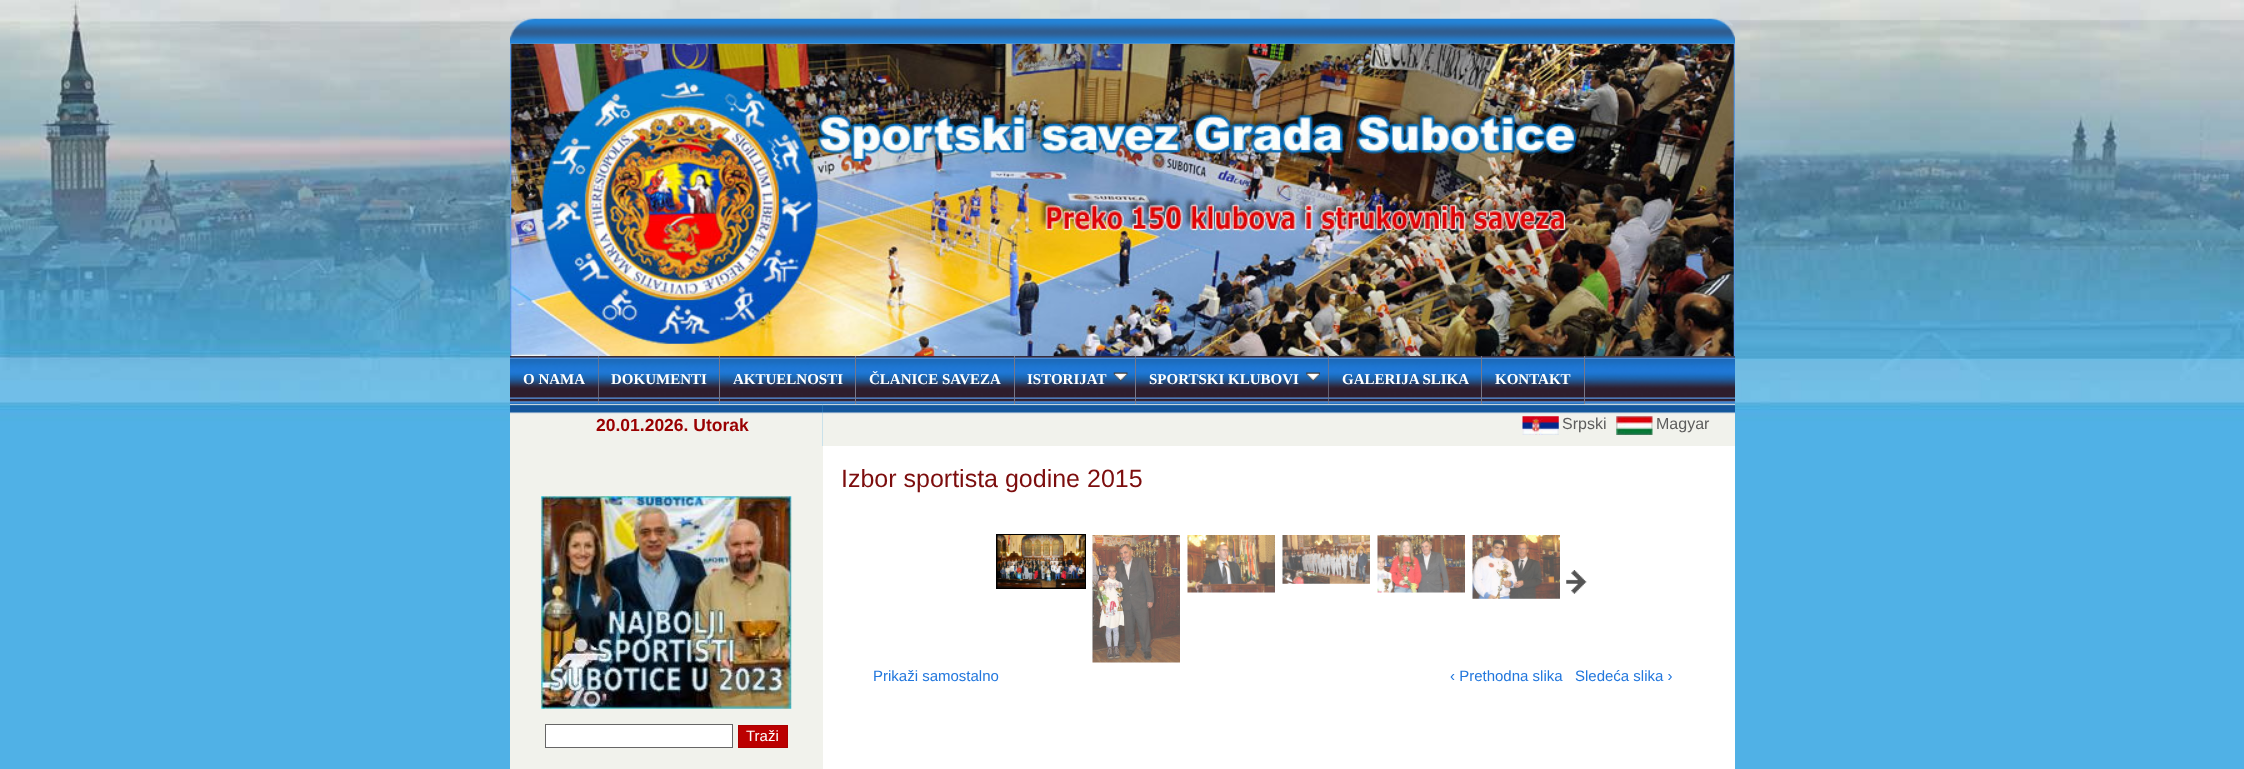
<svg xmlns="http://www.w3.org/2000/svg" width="2244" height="769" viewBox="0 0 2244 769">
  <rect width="100%" height="100%" fill="#ffffff"/>
  <image x="0" y="0" width="2244" height="769" href="img1.png"/>
  <image x="510" y="18" width="1225" height="26" href="img2.png"/>
  <image x="510" y="356" width="1225" height="48" href="img4.png"/>
  <image x="510" y="43" width="1225" height="314" href="img3.png"/>
  <image x="510" y="403" width="313" height="43" href="img15.png"/>
  <image x="510" y="356" width="88" height="48" href="img5.png"/>
  <rect x="598" y="356" width="1" height="48" fill="#777788"/>
  <text x="523" y="384" font-family="Liberation Serif" font-size="15" font-weight="bold" fill="#ffffff">O NAMA</text>
  <image x="598" y="356" width="121" height="48" href="img6.png"/>
  <rect x="719" y="356" width="1" height="48" fill="#777788"/>
  <text x="611" y="384" font-family="Liberation Serif" font-size="15" font-weight="bold" fill="#ffffff">DOKUMENTI</text>
  <image x="822" y="403" width="913" height="43" href="img16.png"/>
  <image x="720" y="356" width="137" height="48" href="img7.png"/>
  <rect x="855" y="356" width="1" height="48" fill="#777788"/>
  <text x="733" y="384" font-family="Liberation Serif" font-size="15" font-weight="bold" fill="#ffffff">AKTUELNOSTI</text>
  <image x="856" y="356" width="158" height="48" href="img8.png"/>
  <rect x="1014" y="356" width="1" height="48" fill="#777788"/>
  <text x="869" y="384" font-family="Liberation Serif" font-size="15" font-weight="bold" fill="#ffffff">ČLANICE SAVEZA</text>
  <image x="1015" y="356" width="122" height="48" href="img9.png"/>
  <rect x="1135" y="356" width="1" height="48" fill="#777788"/>
  <text x="1027" y="384" font-family="Liberation Serif" font-size="15" font-weight="bold" fill="#ffffff">ISTORIJAT</text>
  <image x="1113" y="372" width="15" height="10" href="img10.png"/>
  <image x="1136" y="356" width="192" height="48" href="img11.png"/>
  <rect x="1328" y="356" width="1" height="48" fill="#777788"/>
  <text x="1149" y="384" font-family="Liberation Serif" font-size="15" font-weight="bold" fill="#ffffff">SPORTSKI KLUBOVI</text>
  <image x="1306" y="372" width="14" height="10" href="img12.png"/>
  <image x="1328" y="356" width="155" height="48" href="img13.png"/>
  <rect x="1481" y="356" width="1" height="48" fill="#777788"/>
  <text x="1342" y="384" font-family="Liberation Serif" font-size="15" font-weight="bold" fill="#ffffff">GALERIJA SLIKA</text>
  <image x="1482" y="356" width="102" height="48" href="img14.png"/>
  <rect x="1584" y="356" width="1" height="48" fill="#777788"/>
  <text x="1495" y="384" font-family="Liberation Serif" font-size="15" font-weight="bold" fill="#ffffff">KONTAKT</text>
  <text x="596" y="431" font-family="Liberation Sans" font-size="17.5" font-weight="bold" fill="#990000">20.01.2026. Utorak</text>
  <image x="1522" y="416" width="37" height="19" href="img17.png"/>
  <text x="1562" y="429" font-family="Liberation Sans" font-size="16" fill="#5d5d5d">Srpski</text>
  <image x="1616" y="416" width="37" height="19" href="img18.png"/>
  <text x="1656" y="429" font-family="Liberation Sans" font-size="16" fill="#5d5d5d">Magyar</text>
  <rect x="823" y="446" width="912" height="323" fill="#ffffff"/>
  <text x="841" y="487" font-family="Liberation Sans" font-size="25" fill="#7c0d0d">Izbor sportista godine 2015</text>
  <rect x="996" y="534" width="90" height="55" fill="#000000"/>
  <image x="997" y="535" width="88" height="53" href="img19.png"/>
  <image x="1092" y="535" width="88" height="128" href="img20.png"/>
  <image x="1187" y="535" width="88" height="58" href="img21.png"/>
  <image x="1282" y="535" width="88" height="49" href="img22.png"/>
  <image x="1377" y="535" width="88" height="58" href="img23.png"/>
  <image x="1472" y="535" width="88" height="64" href="img24.png"/>
  <image x="1566" y="570" width="21" height="24" href="img25.png"/>
  <text x="873" y="681" font-family="Liberation Sans" font-size="15" fill="#2277dd">Prikaži samostalno</text>
  <text x="1450" y="681" font-family="Liberation Sans" font-size="15" fill="#2277dd">‹ Prethodna slika</text>
  <text x="1575" y="681" font-family="Liberation Sans" font-size="15" fill="#2277dd">Sledeća slika ›</text>
  <rect x="510" y="446" width="313" height="323" fill="#f1f2ec"/>
  <image x="541" y="496" width="251" height="213" href="img26.png"/>
  <rect x="545.5" y="724.5" width="187" height="23" fill="#ffffff" stroke="#666666"/>
  <rect x="738.5" y="725.5" width="49" height="22" fill="#bb0000" stroke="#aa0000"/>
  <text x="746" y="741" font-family="Liberation Sans" font-size="15" fill="#ffffff">Traži</text>
</svg>
